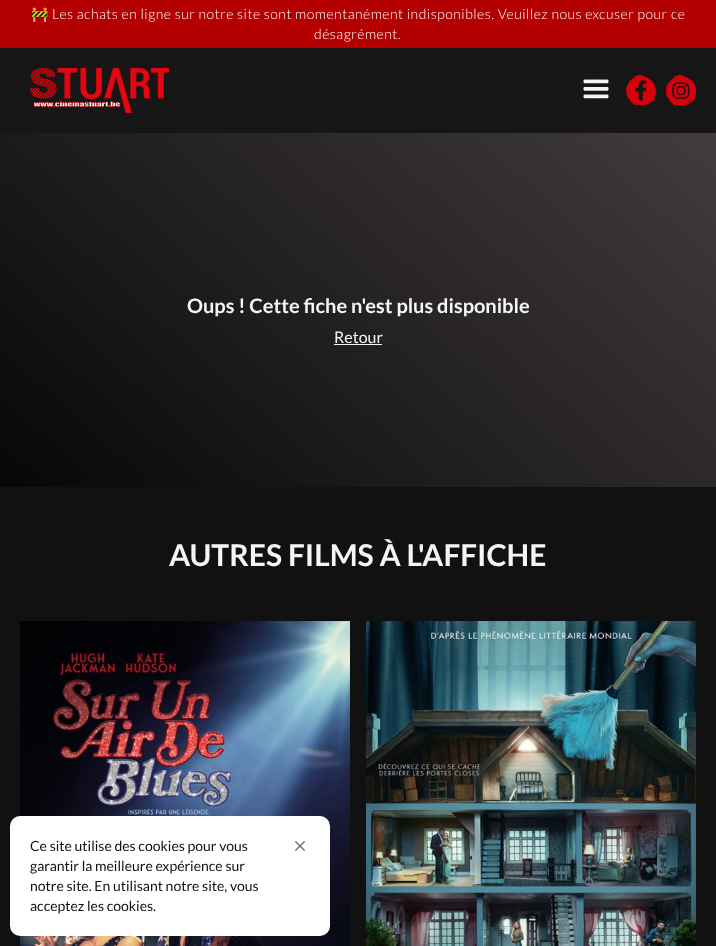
<svg xmlns="http://www.w3.org/2000/svg" width="716" height="946" viewBox="0 0 716 946">
  <defs>
    <linearGradient id="g1" gradientUnits="userSpaceOnUse" x1="606" y1="34" x2="110" y2="586"><stop offset="0" stop-color="#423c3c"/><stop offset="1" stop-color="#070707"/></linearGradient>
  </defs>
  <rect width="100%" height="100%" fill="#111111"/>
  <rect x="0" y="0" width="716" height="48" fill="#b40000"/>
  <text x="31" y="19" font-family="Noto Color Emoji" font-size="14" letter-spacing="0.5" fill="#ffffff">🚧</text>
  <text x="52" y="19" font-family="Lato" font-size="14" font-weight="300" letter-spacing="0.5" fill="#ffffff">Les achats en ligne sur notre site sont momentanément indisponibles. Veuillez nous excuser pour ce</text>
  <text x="314" y="39" font-family="Lato" font-size="14" font-weight="300" letter-spacing="0.5" fill="#ffffff">désagrément.</text>
  <rect x="0" y="48" width="716" height="85" fill="#161616"/>
  <image x="30" y="68" width="139" height="45" href="img1.png"/>
  <image x="583" y="79" width="26" height="20" href="img2.png"/>
  <image x="626" y="75" width="30" height="31" href="img3.png"/>
  <image x="666" y="75" width="30" height="31" href="img4.png"/>
  <rect x="0" y="133" width="716" height="354" fill="url(#g1)"/>
  <text x="187" y="313" font-family="Lato" font-size="20" font-weight="bold" fill="#f5f5f5">Oups ! Cette fiche n'est plus disponible</text>
  <text x="334" y="343" font-family="Lato" font-size="16" fill="#f5f5f5">Retour</text>
  <rect x="334" y="344" width="48" height="1" fill="#f5f5f5"/>
  <text x="169" y="566" font-family="Lato" font-size="30" font-weight="bold" fill="#f5f5f5">AUTRES FILMS À L'AFFICHE</text>
  <image x="20" y="621" width="330" height="325" href="img5.png"/>
  <image x="366" y="621" width="330" height="325" href="img6.png"/>
  <rect x="10" y="816" width="320" height="120" rx="10" fill="#ffffff"/>
  <text x="30" y="851" font-family="Lato" font-size="14" fill="#111111">Ce site utilise des cookies pour vous</text>
  <text x="30" y="871" font-family="Lato" font-size="14" fill="#111111">garantir la meilleure expérience sur</text>
  <text x="30" y="891" font-family="Lato" font-size="14" fill="#111111">notre site. En utilisant notre site, vous</text>
  <text x="30" y="911" font-family="Lato" font-size="14" fill="#111111">acceptez les cookies.</text>
  <image x="295" y="841" width="10" height="10" href="img7.png"/>
</svg>
